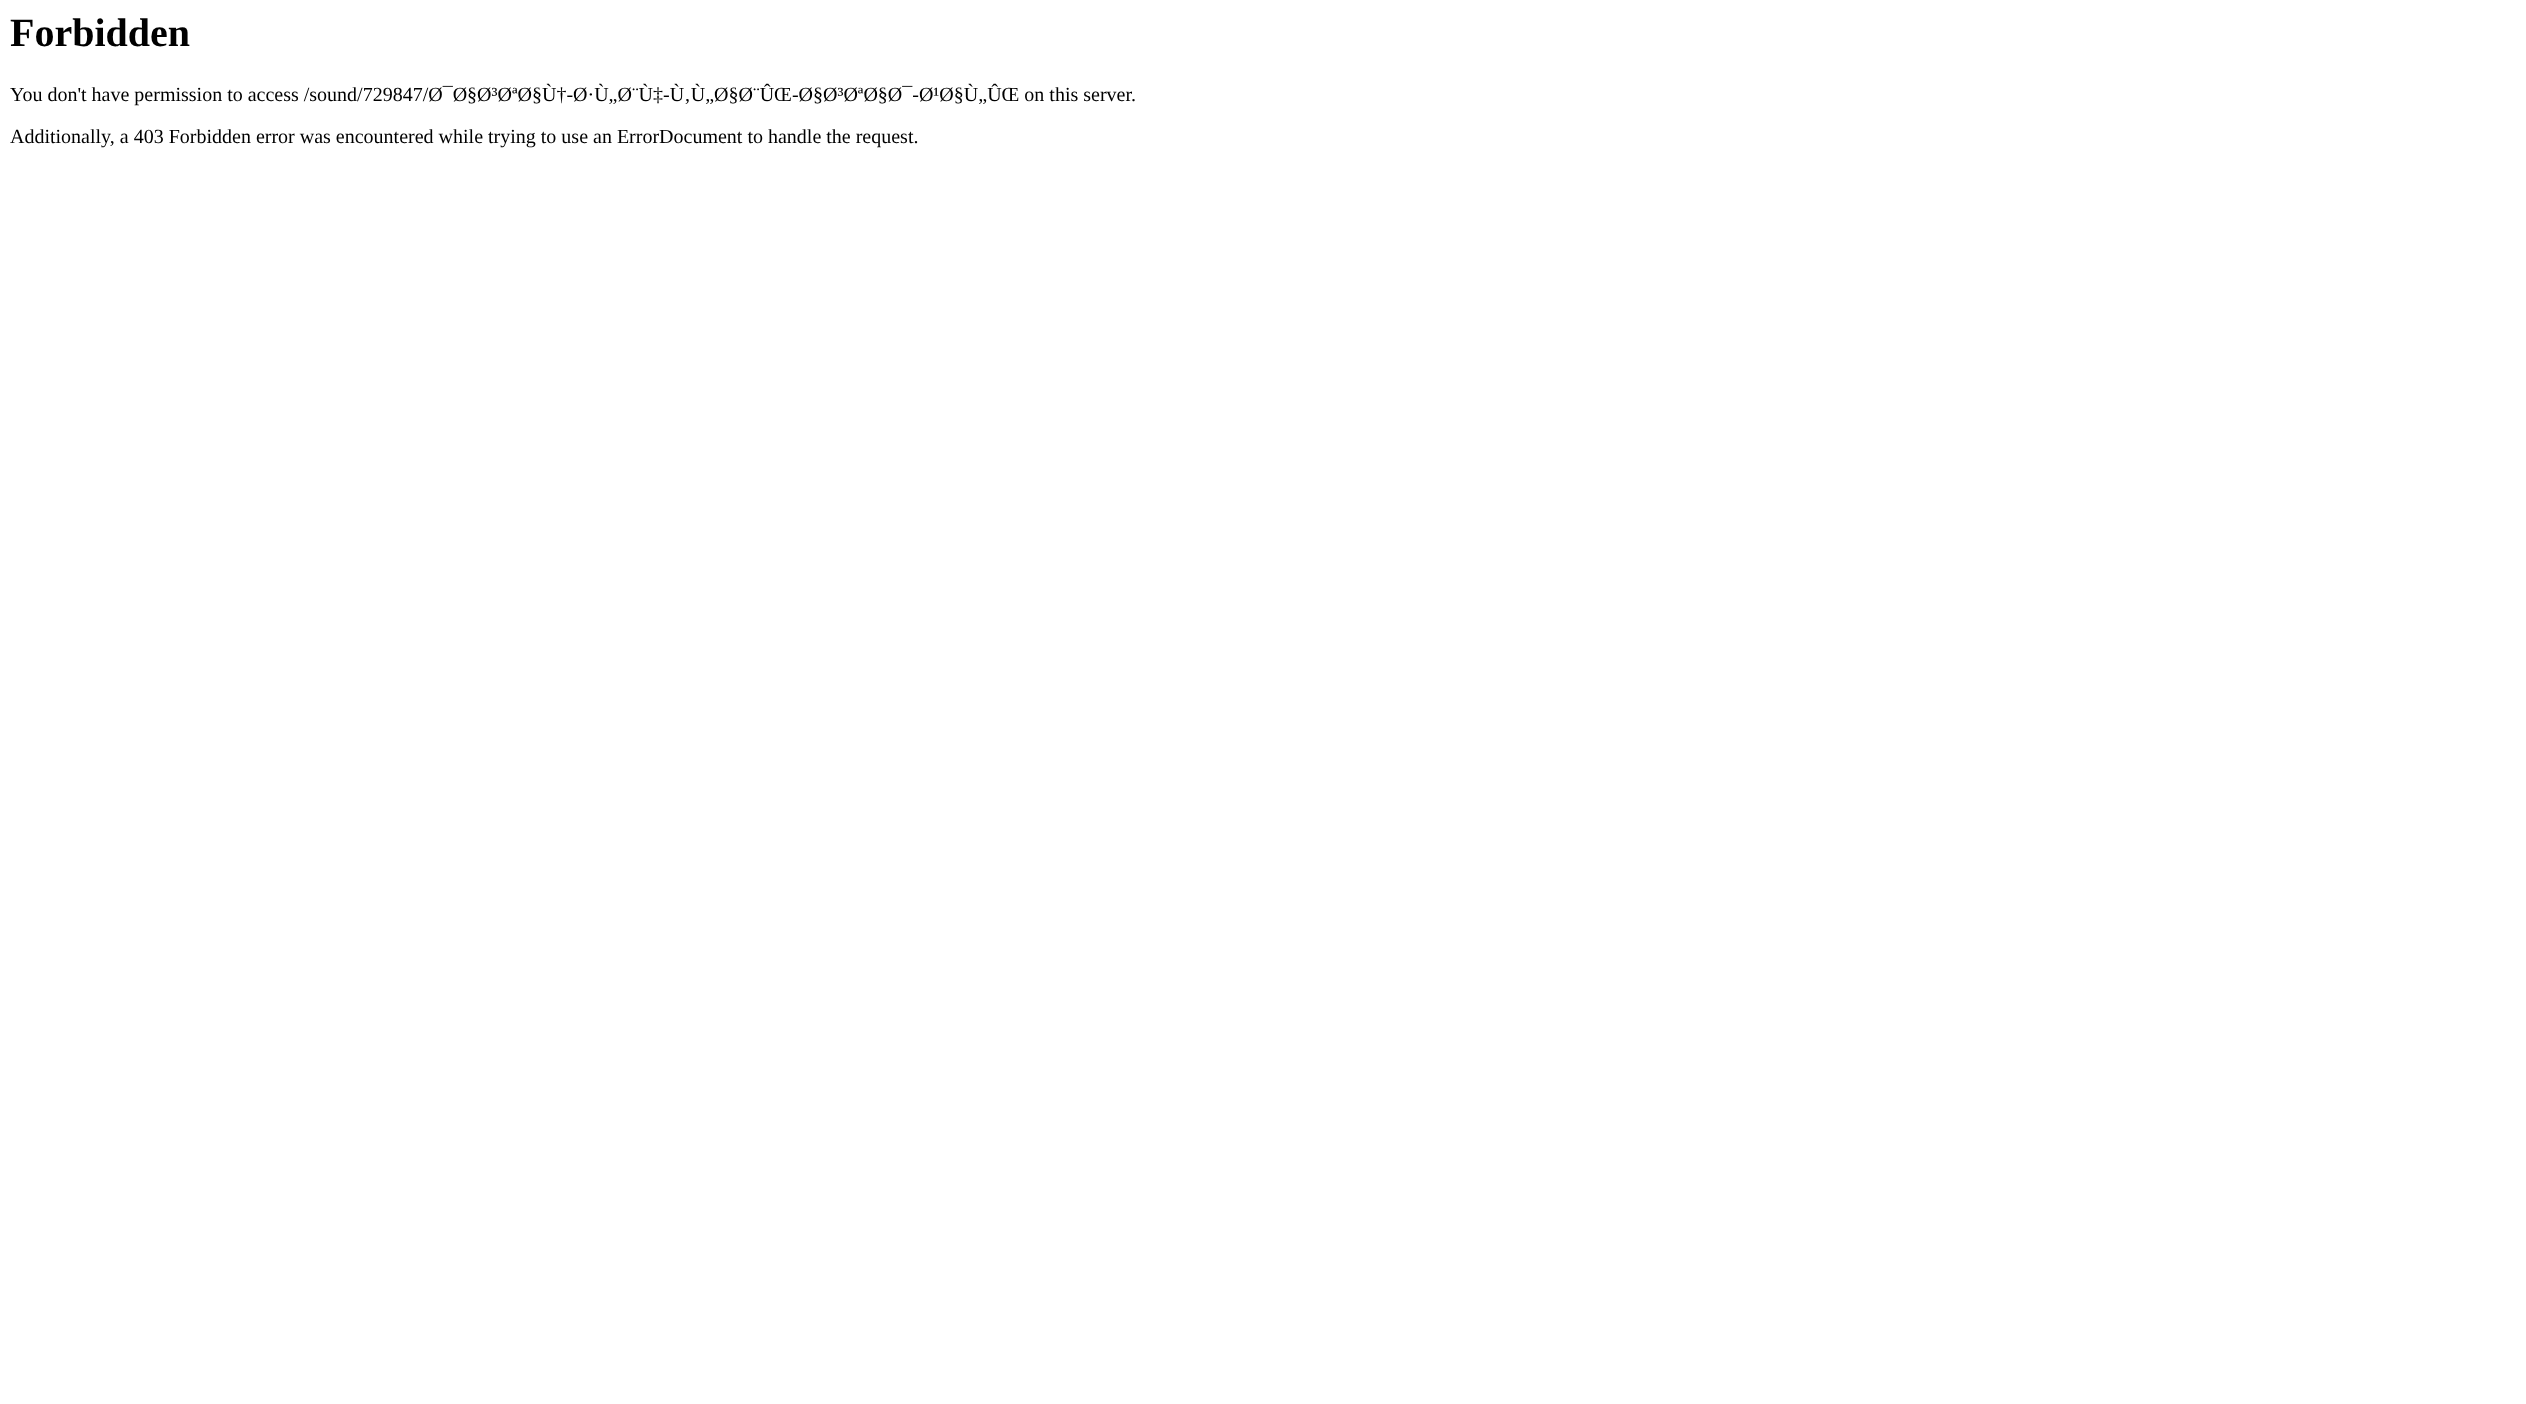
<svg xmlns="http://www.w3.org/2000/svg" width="2526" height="1404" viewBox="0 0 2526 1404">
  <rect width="100%" height="100%" fill="#ffffff"/>
  <text x="10" y="46" font-family="Liberation Serif" font-size="40" font-weight="bold" fill="#000000">Forbidden</text>
  <text x="10" y="101" font-family="Liberation Serif" font-size="20" fill="#000000">You don't have permission to access /sound/729847/Ø¯Ø§Ø³ØªØ§Ù†-Ø·Ù„Ø¨Ù‡-Ù‚Ù„Ø§Ø¨ÛŒ-Ø§Ø³ØªØ§Ø¯-Ø¹Ø§Ù„ÛŒ on this server.</text>
  <text x="10" y="143" font-family="Liberation Serif" font-size="20" fill="#000000">Additionally, a 403 Forbidden error was encountered while trying to use an ErrorDocument to handle the request.</text>
</svg>
